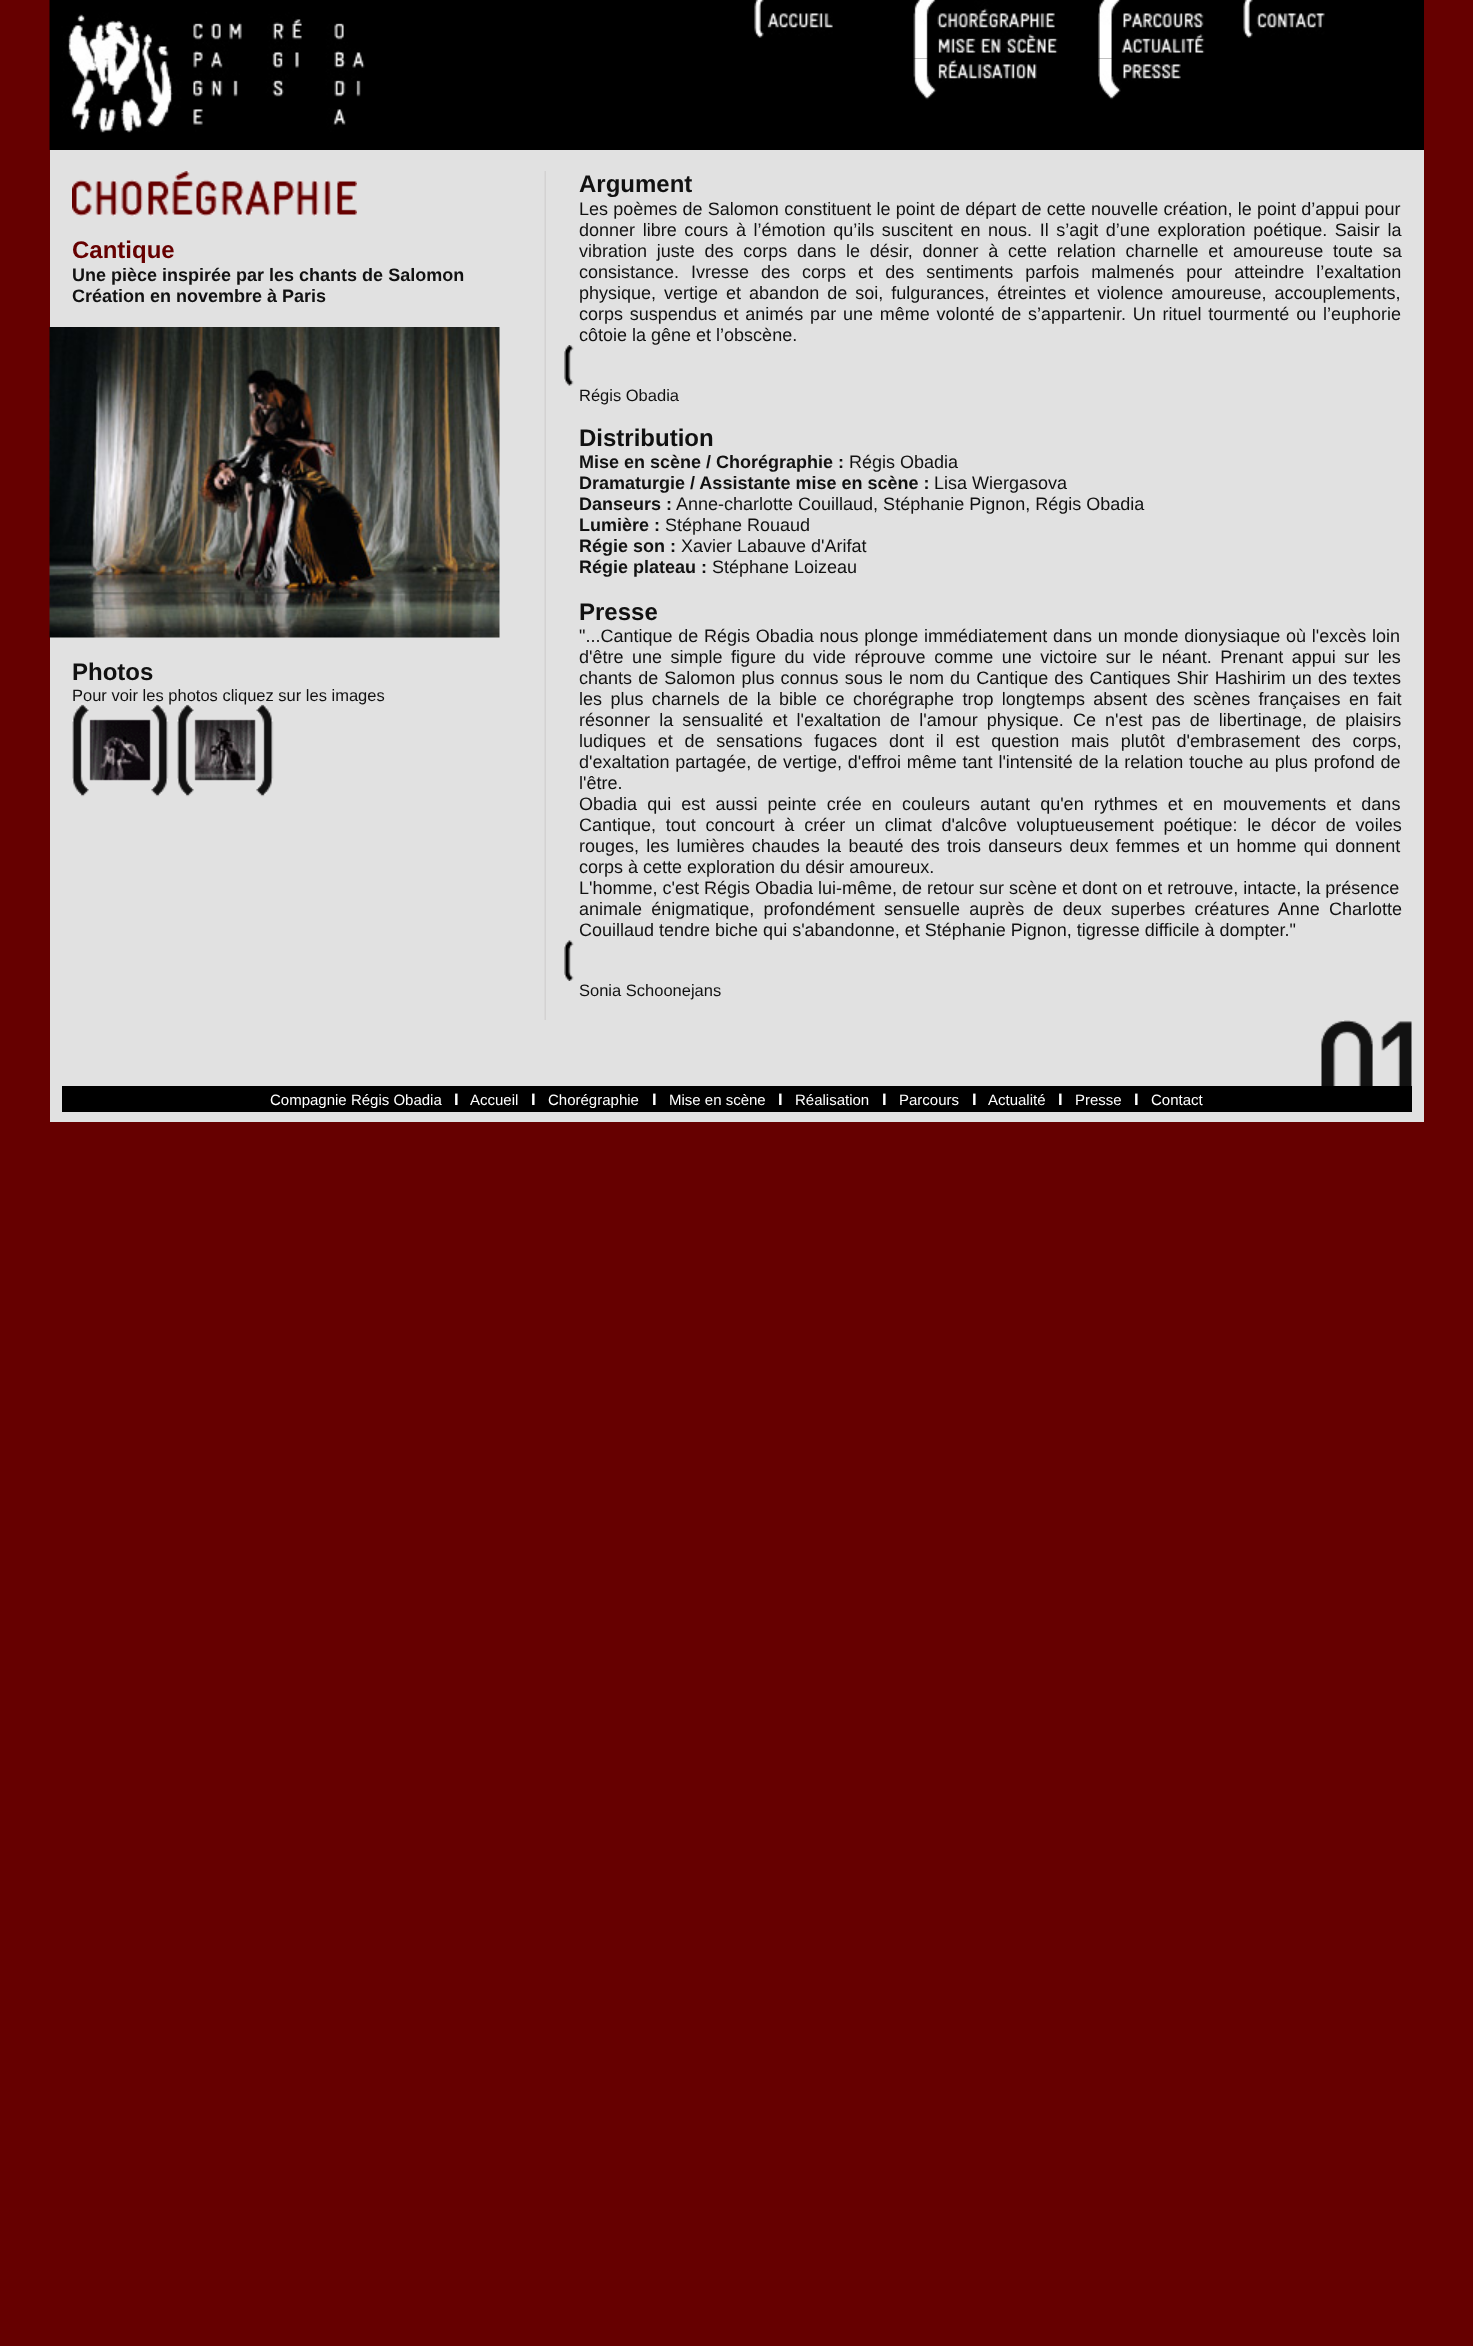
<svg xmlns="http://www.w3.org/2000/svg" width="1473" height="2346" viewBox="0 0 1473 2346">
  <rect width="100%" height="100%" fill="#660000"/>
  <rect x="50" y="150" width="1374" height="972" fill="#e1e1e1"/>
  <rect x="365" y="0" width="1059" height="150" fill="#000000"/>
  <image x="49" y="0" width="316" height="150" href="img1.png"/>
  <image x="754" y="0" width="79" height="38" href="img2.png"/>
  <image x="913" y="0" width="142" height="33" href="img3.png"/>
  <image x="913" y="33" width="145" height="26" href="img4.png"/>
  <image x="913" y="58" width="124" height="42" href="img5.png"/>
  <image x="1098" y="0" width="106" height="33" href="img6.png"/>
  <image x="1098" y="33" width="107" height="26" href="img7.png"/>
  <image x="1098" y="58" width="83" height="42" href="img8.png"/>
  <image x="1243" y="0" width="82" height="38" href="img9.png"/>
  <image x="72" y="171" width="285" height="45" href="img10.png"/>
  <text x="72" y="258" font-family="Liberation Sans" font-size="24" font-weight="bold" fill="#660000">Cantique</text>
  <text x="72" y="281" font-family="Liberation Sans" font-size="18" font-weight="bold" fill="#111111">Une pièce inspirée par les chants de Salomon</text>
  <text x="72" y="302" font-family="Liberation Sans" font-size="18" font-weight="bold" fill="#111111">Création en novembre à Paris</text>
  <image x="49" y="327" width="451" height="311" href="img11.png"/>
  <text x="72" y="680" font-family="Liberation Sans" font-size="24" font-weight="bold" fill="#111111">Photos</text>
  <text x="72" y="701" font-family="Liberation Sans" font-size="16.5" fill="#111111">Pour voir les photos cliquez sur les images</text>
  <image x="72" y="703" width="97" height="94" href="img12.png"/>
  <image x="177" y="703" width="97" height="94" href="img13.png"/>
  <image x="544" y="171" width="2" height="849" href="img14.png"/>
  <text x="579" y="192" font-family="Liberation Sans" font-size="24" font-weight="bold" fill="#111111">Argument</text>
  <text x="579" y="215" word-spacing="0.25" font-family="Liberation Sans" font-size="18" fill="#111111">Les poèmes de Salomon constituent le point de départ de cette nouvelle création, le point d’appui pour</text>
  <text x="579" y="236" word-spacing="2.6" font-family="Liberation Sans" font-size="18" fill="#111111">donner libre cours à l’émotion qu’ils suscitent en nous. Il s’agit d’une exploration poétique. Saisir la</text>
  <text x="579" y="257" word-spacing="4.75" font-family="Liberation Sans" font-size="18" fill="#111111">vibration juste des corps dans le désir, donner à cette relation charnelle et amoureuse toute sa</text>
  <text x="579" y="278" word-spacing="7" font-family="Liberation Sans" font-size="18" fill="#111111">consistance. Ivresse des corps et des sentiments parfois malmenés pour atteindre l’exaltation</text>
  <text x="579" y="299" word-spacing="3" font-family="Liberation Sans" font-size="18" fill="#111111">physique, vertige et abandon de soi, fulgurances, étreintes et violence amoureuse, accouplements,</text>
  <text x="579" y="320" word-spacing="1.75" font-family="Liberation Sans" font-size="18" fill="#111111">corps suspendus et animés par une même volonté de s’appartenir. Un rituel tourmenté ou l’euphorie</text>
  <text x="579" y="341" font-family="Liberation Sans" font-size="18" fill="#111111">côtoie la gêne et l’obscène.</text>
  <image x="564" y="345" width="10" height="41" href="img15.png"/>
  <text x="579" y="401" font-family="Liberation Sans" font-size="16.5" fill="#111111">Régis Obadia</text>
  <text x="579" y="446" font-family="Liberation Sans" font-size="24" font-weight="bold" fill="#111111">Distribution</text>
  <text x="579" y="468" font-family="Liberation Sans" font-size="18" font-weight="bold" fill="#111111">Mise en scène / Chorégraphie :</text>
  <text x="849" y="468" font-family="Liberation Sans" font-size="18" fill="#111111">Régis Obadia</text>
  <text x="579" y="489" font-family="Liberation Sans" font-size="18" font-weight="bold" fill="#111111">Dramaturgie / Assistante mise en scène :</text>
  <text x="934" y="489" font-family="Liberation Sans" font-size="18" fill="#111111">Lisa Wiergasova</text>
  <text x="579" y="510" font-family="Liberation Sans" font-size="18" font-weight="bold" fill="#111111">Danseurs :</text>
  <text x="676" y="510" font-family="Liberation Sans" font-size="18" fill="#111111">Anne-charlotte Couillaud, Stéphanie Pignon, Régis Obadia</text>
  <text x="579" y="531" font-family="Liberation Sans" font-size="18" font-weight="bold" fill="#111111">Lumière :</text>
  <text x="665" y="531" font-family="Liberation Sans" font-size="18" fill="#111111">Stéphane Rouaud</text>
  <text x="579" y="552" font-family="Liberation Sans" font-size="18" font-weight="bold" fill="#111111">Régie son :</text>
  <text x="681" y="552" font-family="Liberation Sans" font-size="18" fill="#111111">Xavier Labauve d'Arifat</text>
  <text x="579" y="573" font-family="Liberation Sans" font-size="18" font-weight="bold" fill="#111111">Régie plateau :</text>
  <text x="712" y="573" font-family="Liberation Sans" font-size="18" fill="#111111">Stéphane Loizeau</text>
  <text x="579" y="620" font-family="Liberation Sans" font-size="24" font-weight="bold" fill="#111111">Presse</text>
  <text x="579" y="642" word-spacing="0.75" font-family="Liberation Sans" font-size="18" fill="#111111">"...Cantique de Régis Obadia nous plonge immédiatement dans un monde dionysiaque où l'excès loin</text>
  <text x="579" y="663" word-spacing="3.5" font-family="Liberation Sans" font-size="18" fill="#111111">d'être une simple figure du vide réprouve comme une victoire sur le néant. Prenant appui sur les</text>
  <text x="579" y="684" word-spacing="1.1" font-family="Liberation Sans" font-size="18" fill="#111111">chants de Salomon plus connus sous le nom du Cantique des Cantiques Shir Hashirim un des textes</text>
  <text x="579" y="705" word-spacing="3.4" font-family="Liberation Sans" font-size="18" fill="#111111">les plus charnels de la bible ce chorégraphe trop longtemps absent des scènes françaises en fait</text>
  <text x="579" y="726" word-spacing="4.1" font-family="Liberation Sans" font-size="18" fill="#111111">résonner la sensualité et l'exaltation de l'amour physique. Ce n'est pas de libertinage, de plaisirs</text>
  <text x="579" y="747" word-spacing="6.75" font-family="Liberation Sans" font-size="18" fill="#111111">ludiques et de sensations fugaces dont il est question mais plutôt d'embrasement des corps,</text>
  <text x="579" y="768" word-spacing="0.8" font-family="Liberation Sans" font-size="18" fill="#111111">d'exaltation partagée, de vertige, d'effroi même tant l'intensité de la relation touche au plus profond de</text>
  <text x="579" y="789" font-family="Liberation Sans" font-size="18" fill="#111111">l'être.</text>
  <text x="579" y="810" word-spacing="5.1" font-family="Liberation Sans" font-size="18" fill="#111111">Obadia qui est aussi peinte crée en couleurs autant qu'en rythmes et en mouvements et dans</text>
  <text x="579" y="831" word-spacing="4.75" font-family="Liberation Sans" font-size="18" fill="#111111">Cantique, tout concourt à créer un climat d'alcôve voluptueusement poétique: le décor de voiles</text>
  <text x="579" y="852" word-spacing="2.25" font-family="Liberation Sans" font-size="18" fill="#111111">rouges, les lumières chaudes la beauté des trois danseurs deux femmes et un homme qui donnent</text>
  <text x="579" y="873" font-family="Liberation Sans" font-size="18" fill="#111111">corps à cette exploration du désir amoureux.</text>
  <text x="579" y="894" font-family="Liberation Sans" font-size="18" fill="#111111">L'homme, c'est Régis Obadia lui-même, de retour sur scène et dont on et retrouve, intacte, la présence</text>
  <text x="579" y="915" word-spacing="4.25" font-family="Liberation Sans" font-size="18" fill="#111111">animale énigmatique, profondément sensuelle auprès de deux superbes créatures Anne Charlotte</text>
  <text x="579" y="936" font-family="Liberation Sans" font-size="18" fill="#111111">Couillaud tendre biche qui s'abandonne, et Stéphanie Pignon, tigresse difficile à dompter."</text>
  <image x="564" y="940" width="10" height="41" href="img16.png"/>
  <text x="579" y="996" font-family="Liberation Sans" font-size="16.5" fill="#111111">Sonia Schoonejans</text>
  <image x="1321" y="1020" width="91" height="66" href="img17.png"/>
  <rect x="62" y="1086" width="1350" height="26" fill="#000000"/>
  <text x="270" y="1105" font-family="Liberation Sans" font-size="15" fill="#ffffff">Compagnie Régis Obadia</text>
  <text x="454" y="1105" font-family="Liberation Sans" font-size="16.5" font-weight="bold" fill="#ffffff">I</text>
  <text x="470" y="1105" font-family="Liberation Sans" font-size="15" fill="#ffffff">Accueil</text>
  <text x="531" y="1105" font-family="Liberation Sans" font-size="16.5" font-weight="bold" fill="#ffffff">I</text>
  <text x="548" y="1105" font-family="Liberation Sans" font-size="15" fill="#ffffff">Chorégraphie</text>
  <text x="652" y="1105" font-family="Liberation Sans" font-size="16.5" font-weight="bold" fill="#ffffff">I</text>
  <text x="669" y="1105" font-family="Liberation Sans" font-size="15" fill="#ffffff">Mise en scène</text>
  <text x="778" y="1105" font-family="Liberation Sans" font-size="16.5" font-weight="bold" fill="#ffffff">I</text>
  <text x="795" y="1105" font-family="Liberation Sans" font-size="15" fill="#ffffff">Réalisation</text>
  <text x="882" y="1105" font-family="Liberation Sans" font-size="16.5" font-weight="bold" fill="#ffffff">I</text>
  <text x="899" y="1105" font-family="Liberation Sans" font-size="15" fill="#ffffff">Parcours</text>
  <text x="972" y="1105" font-family="Liberation Sans" font-size="16.5" font-weight="bold" fill="#ffffff">I</text>
  <text x="988" y="1105" font-family="Liberation Sans" font-size="15" fill="#ffffff">Actualité</text>
  <text x="1058" y="1105" font-family="Liberation Sans" font-size="16.5" font-weight="bold" fill="#ffffff">I</text>
  <text x="1075" y="1105" font-family="Liberation Sans" font-size="15" fill="#ffffff">Presse</text>
  <text x="1134" y="1105" font-family="Liberation Sans" font-size="16.5" font-weight="bold" fill="#ffffff">I</text>
  <text x="1151" y="1105" font-family="Liberation Sans" font-size="15" fill="#ffffff">Contact</text>
</svg>
